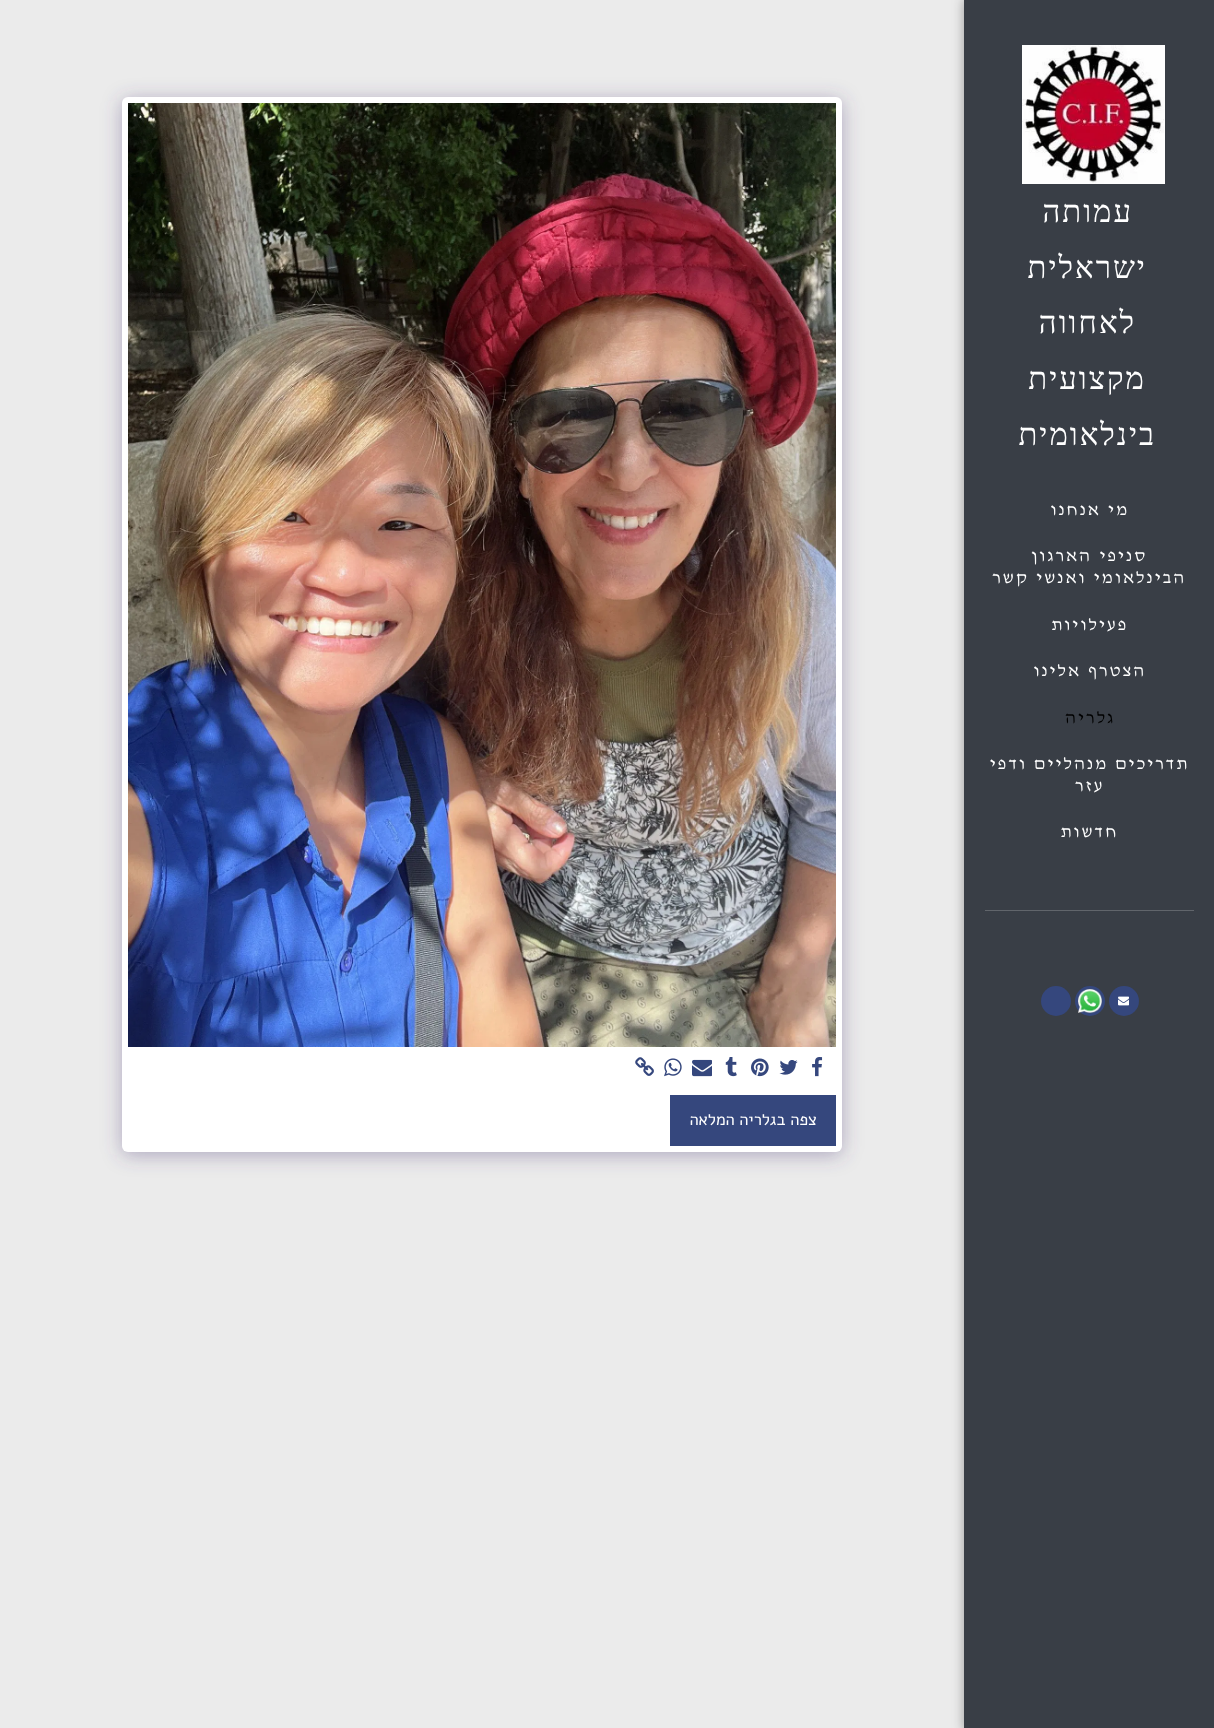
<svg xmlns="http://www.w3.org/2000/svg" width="1214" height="1728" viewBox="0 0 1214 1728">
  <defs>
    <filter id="blur1" x="-50%" y="-200%" width="200%" height="500%"><feGaussianBlur stdDeviation="6"/></filter>
    <filter id="blur2" x="-50%" y="-200%" width="200%" height="500%"><feGaussianBlur stdDeviation="10"/></filter>
  </defs>
  <rect width="100%" height="100%" fill="#ebebeb"/>
  <rect x="964" y="-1" width="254" height="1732" fill="#000000" fill-opacity="0.35" filter="url(#blur1)"/>
  <rect x="964" y="0" width="250" height="1728" fill="#393e46"/>
  <image x="1022" y="45" width="143" height="139" href="img1.png"/>
  <text x="1133" y="222" font-family="Tinos" font-size="31" letter-spacing="2" direction="rtl" fill="#ffffff">עמותה</text>
  <text x="1147" y="278" font-family="Tinos" font-size="31" letter-spacing="2" direction="rtl" fill="#ffffff">ישראלית</text>
  <text x="1136" y="333" font-family="Tinos" font-size="31" letter-spacing="2" direction="rtl" fill="#ffffff">לאחווה</text>
  <text x="1146" y="389" font-family="Tinos" font-size="31" letter-spacing="2" direction="rtl" fill="#ffffff">מקצועית</text>
  <text x="1156" y="445" font-family="Tinos" font-size="31" letter-spacing="2" direction="rtl" fill="#ffffff">בינלאומית</text>
  <text x="1129" y="515" word-spacing="2" font-family="David Libre" font-size="18" letter-spacing="1.6" direction="rtl" fill="#ffffff">מי אנחנו</text>
  <text x="1147" y="561" word-spacing="2" font-family="David Libre" font-size="18" letter-spacing="1.6" direction="rtl" fill="#ffffff">סניפי הארגון</text>
  <text x="1186" y="583" word-spacing="2" font-family="David Libre" font-size="18" letter-spacing="1.6" direction="rtl" fill="#ffffff">הבינלאומי ואנשי קשר</text>
  <text x="1128" y="630" font-family="David Libre" font-size="18" letter-spacing="1.6" direction="rtl" fill="#ffffff">פעילויות</text>
  <text x="1146" y="676" word-spacing="2" font-family="David Libre" font-size="18" letter-spacing="1.6" direction="rtl" fill="#ffffff">הצטרף אלינו</text>
  <text x="1115" y="723" font-family="David Libre" font-size="18" letter-spacing="1.6" direction="rtl" fill="#000000">גלריה</text>
  <text x="1189" y="769" word-spacing="2" font-family="David Libre" font-size="18" letter-spacing="1.6" direction="rtl" fill="#ffffff">תדריכים מנהליים ודפי</text>
  <text x="1104" y="791" font-family="David Libre" font-size="18" letter-spacing="1.6" direction="rtl" fill="#ffffff">עזר</text>
  <text x="1118" y="837" font-family="David Libre" font-size="18" letter-spacing="1.6" direction="rtl" fill="#ffffff">חדשות</text>
  <rect x="985" y="910" width="209" height="1" fill="#61656b"/>
  <circle cx="1124" cy="1001" r="15" fill="#35477d"/>
  <image x="1118" y="996" width="11" height="10" href="img2.png"/>
  <circle cx="1090" cy="1001" r="15" fill="#35477d"/>
  <image x="1078" y="989" width="24" height="24" href="img3.png"/>
  <circle cx="1056" cy="1001" r="15" fill="#35477d"/>
  <rect x="122" y="100" width="720" height="1055" rx="6" fill="#4d3f7a" fill-opacity="0.4" filter="url(#blur2)"/>
  <rect x="122" y="97" width="720" height="1055" rx="6" fill="#ffffff"/>
  <image x="128" y="103" width="708" height="944" href="img4.png"/>
  <image x="812" y="1057" width="11" height="20" href="img5.png"/>
  <image x="779" y="1060" width="19" height="15" href="img6.png"/>
  <image x="751" y="1058" width="18" height="19" href="img7.png"/>
  <image x="725" y="1057" width="12" height="20" href="img8.png"/>
  <image x="692" y="1059" width="20" height="18" href="img9.png"/>
  <image x="664" y="1058" width="18" height="19" href="img10.png"/>
  <image x="635" y="1057" width="19" height="19" href="img11.png"/>
  <rect x="670" y="1095" width="166" height="51" fill="#35477d"/>
  <text x="817" y="1125" font-family="Alef" font-size="16.5" direction="rtl" fill="#ffffff">צפה בגלריה המלאה</text>
</svg>
